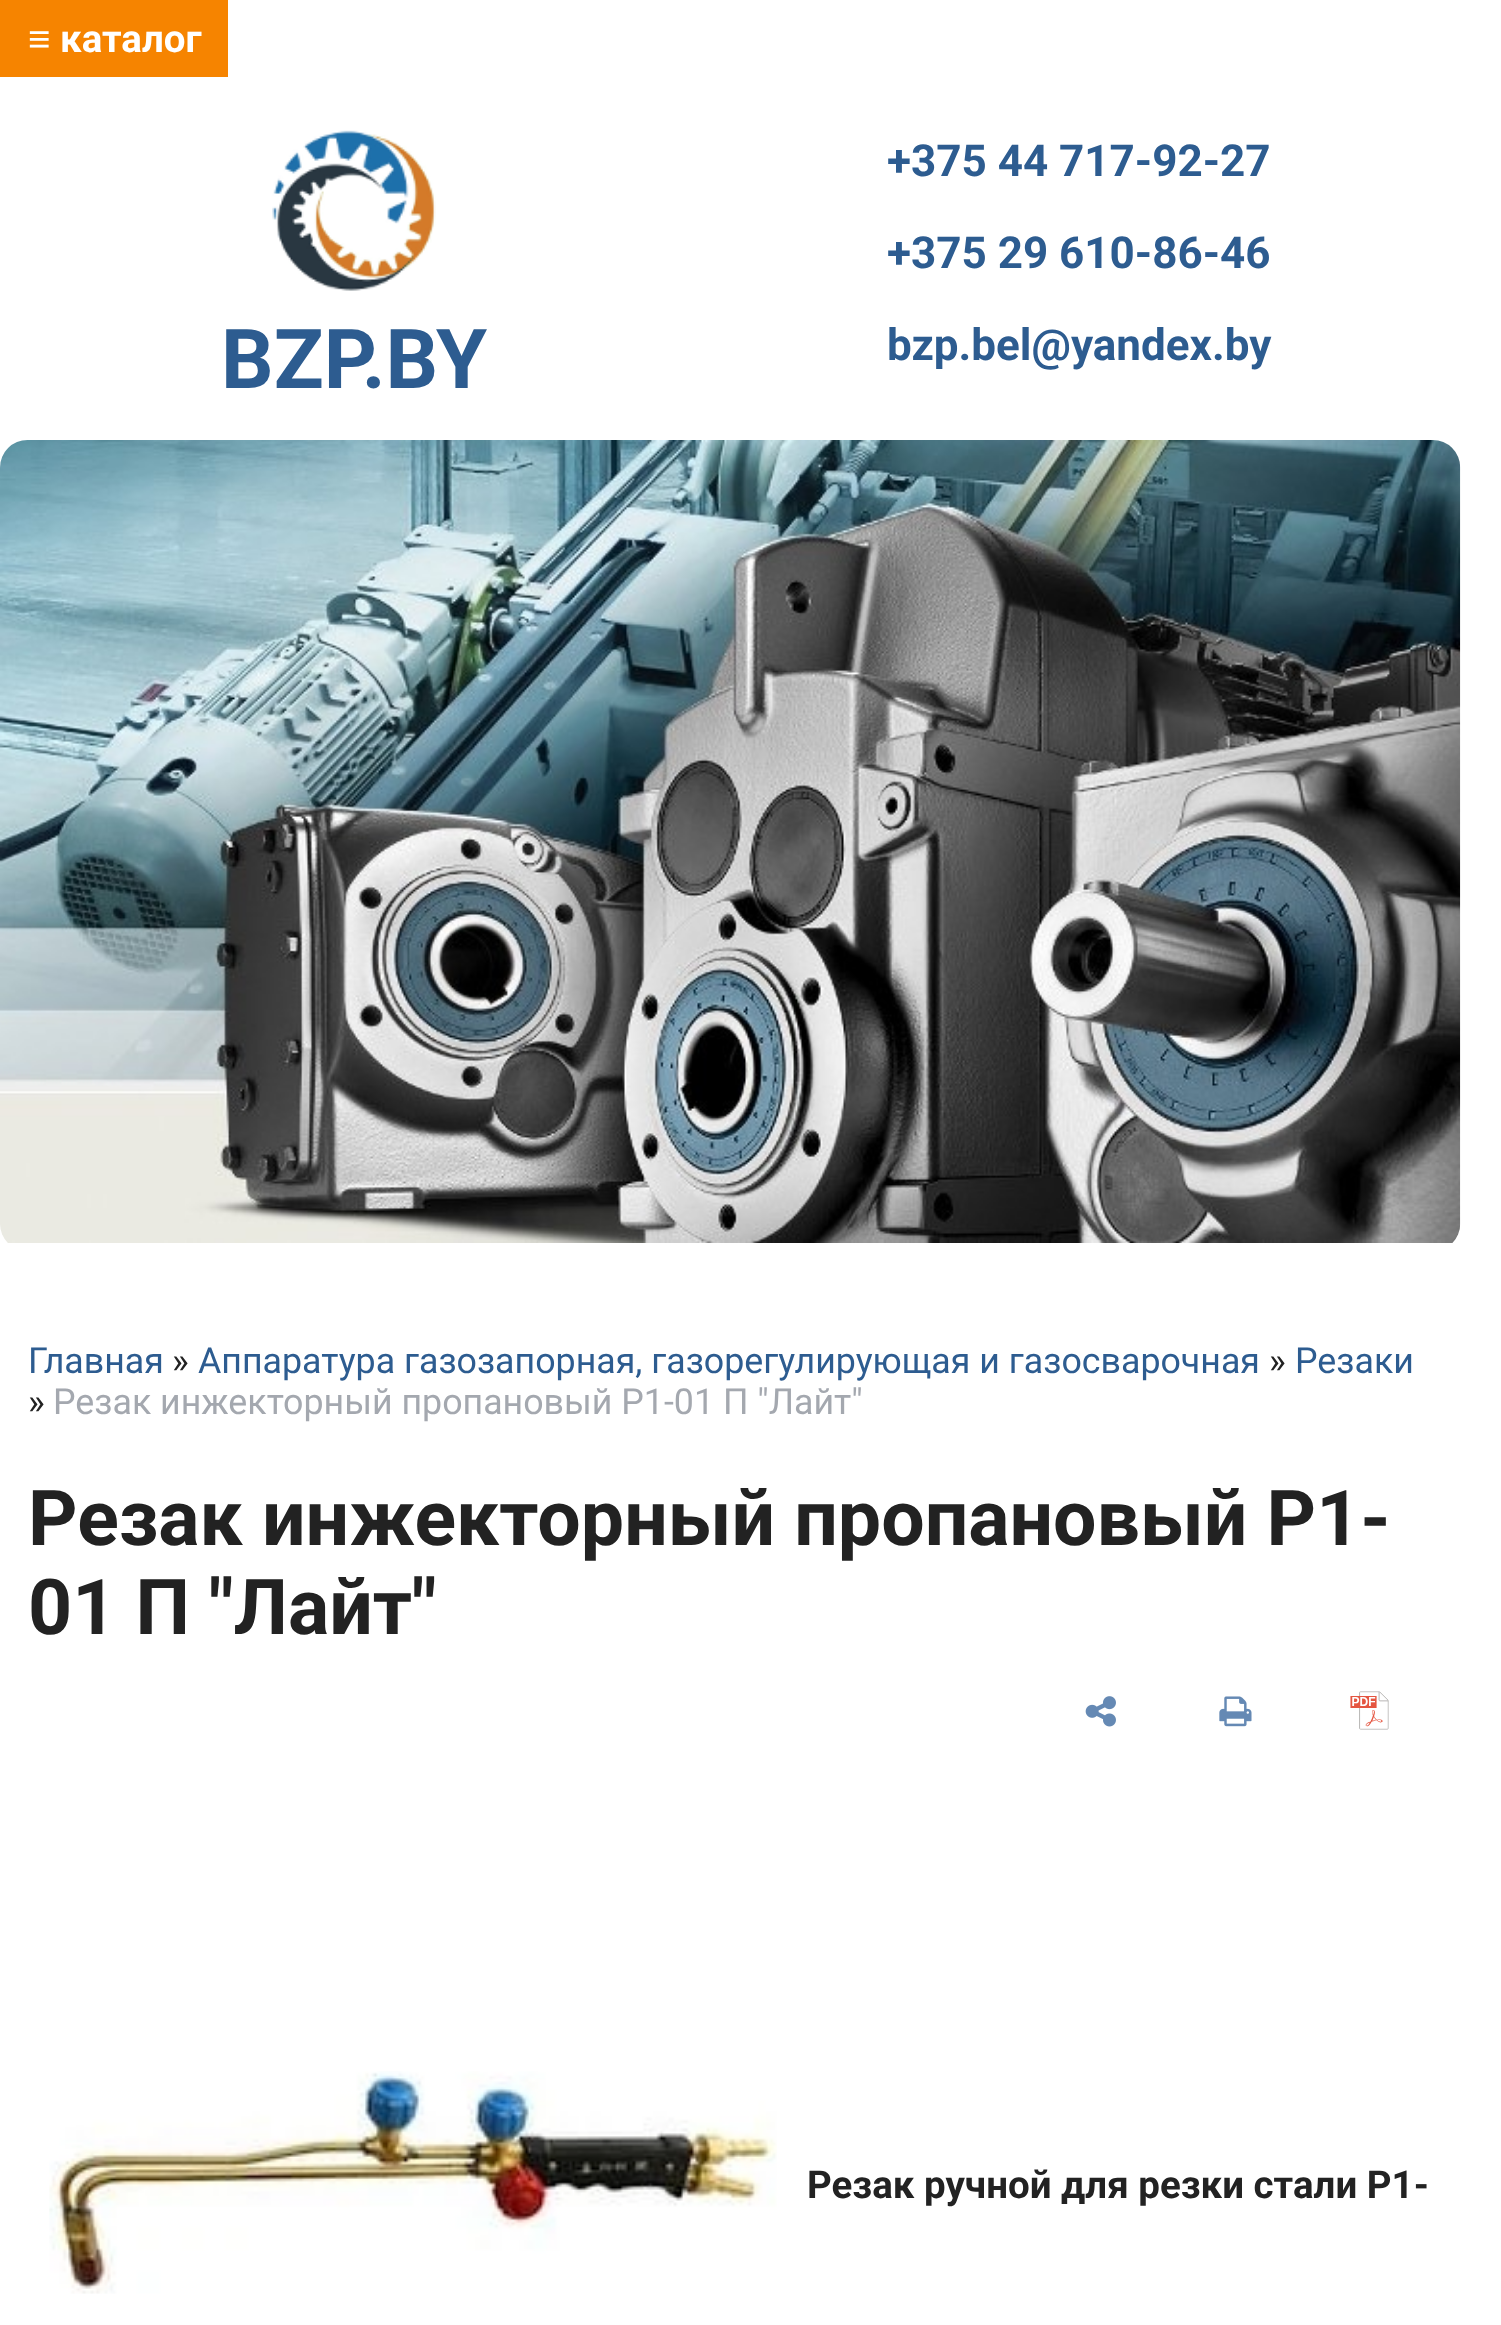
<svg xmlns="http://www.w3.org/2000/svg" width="1501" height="2325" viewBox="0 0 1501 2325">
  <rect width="100%" height="100%" fill="#ffffff"/>
  <rect x="0" y="0" width="228" height="77" fill="#f68400"/>
  <text x="28" y="52" font-family="Liberation Sans" font-size="38.5" font-weight="bold" fill="#ffffff">≡</text>
  <text x="60" y="52" font-family="Roboto" font-size="38.5" font-weight="bold" fill="#ffffff">каталог</text>
  <image x="272" y="130" width="164" height="161" href="img1.png"/>
  <text x="221" y="388" font-family="Roboto" font-size="82.5" font-weight="bold" fill="#2d5c90">BZP.BY</text>
  <text x="887" y="176" font-family="Roboto" font-size="44" font-weight="bold" fill="#2d5c90">+375 44 717-92-27</text>
  <text x="887" y="268" font-family="Roboto" font-size="44" font-weight="bold" fill="#2d5c90">+375 29 610-86-46</text>
  <text x="887" y="360" font-family="Roboto" font-size="44" font-weight="bold" fill="#2d5c90">bzp.bel@yandex.by</text>
  <image x="0" y="440" width="1461" height="803" href="img2.png"/>
  <text x="28" y="1373" font-family="Roboto" font-size="35.75" fill="#2d5c90">Главная</text>
  <text x="172" y="1373" font-family="Roboto" font-size="35.75" fill="#222222">»</text>
  <text x="198" y="1373" font-family="Roboto" font-size="35.75" fill="#2d5c90">Аппаратура газозапорная, газорегулирующая и газосварочная</text>
  <text x="1269" y="1373" font-family="Roboto" font-size="35.75" fill="#222222">»</text>
  <text x="1295" y="1373" font-family="Roboto" font-size="35.75" fill="#2d5c90">Резаки</text>
  <text x="28" y="1414" font-family="Roboto" font-size="35.75" fill="#222222">»</text>
  <text x="53" y="1414" font-family="Roboto" font-size="35.75" fill="#a4a8af">Резак инжекторный пропановый Р1-01 П "Лайт"</text>
  <text x="28" y="1545" font-family="Roboto" font-size="77" font-weight="bold" fill="#222222">Резак инжекторный пропановый Р1-</text>
  <text x="28" y="1634" font-family="Roboto" font-size="77" font-weight="bold" fill="#222222">01 П "Лайт"</text>
  <image x="1085" y="1696" width="31" height="31" href="img3.png"/>
  <image x="1219" y="1696" width="33" height="31" href="img4.png"/>
  <image x="1350" y="1691" width="39" height="39" href="img5.png"/>
  <image x="49" y="2071" width="728" height="223" href="img6.png"/>
  <text x="807" y="2198" font-family="Roboto" font-size="38.5" font-weight="bold" fill="#222222">Резак ручной для резки стали Р1-</text>
</svg>
